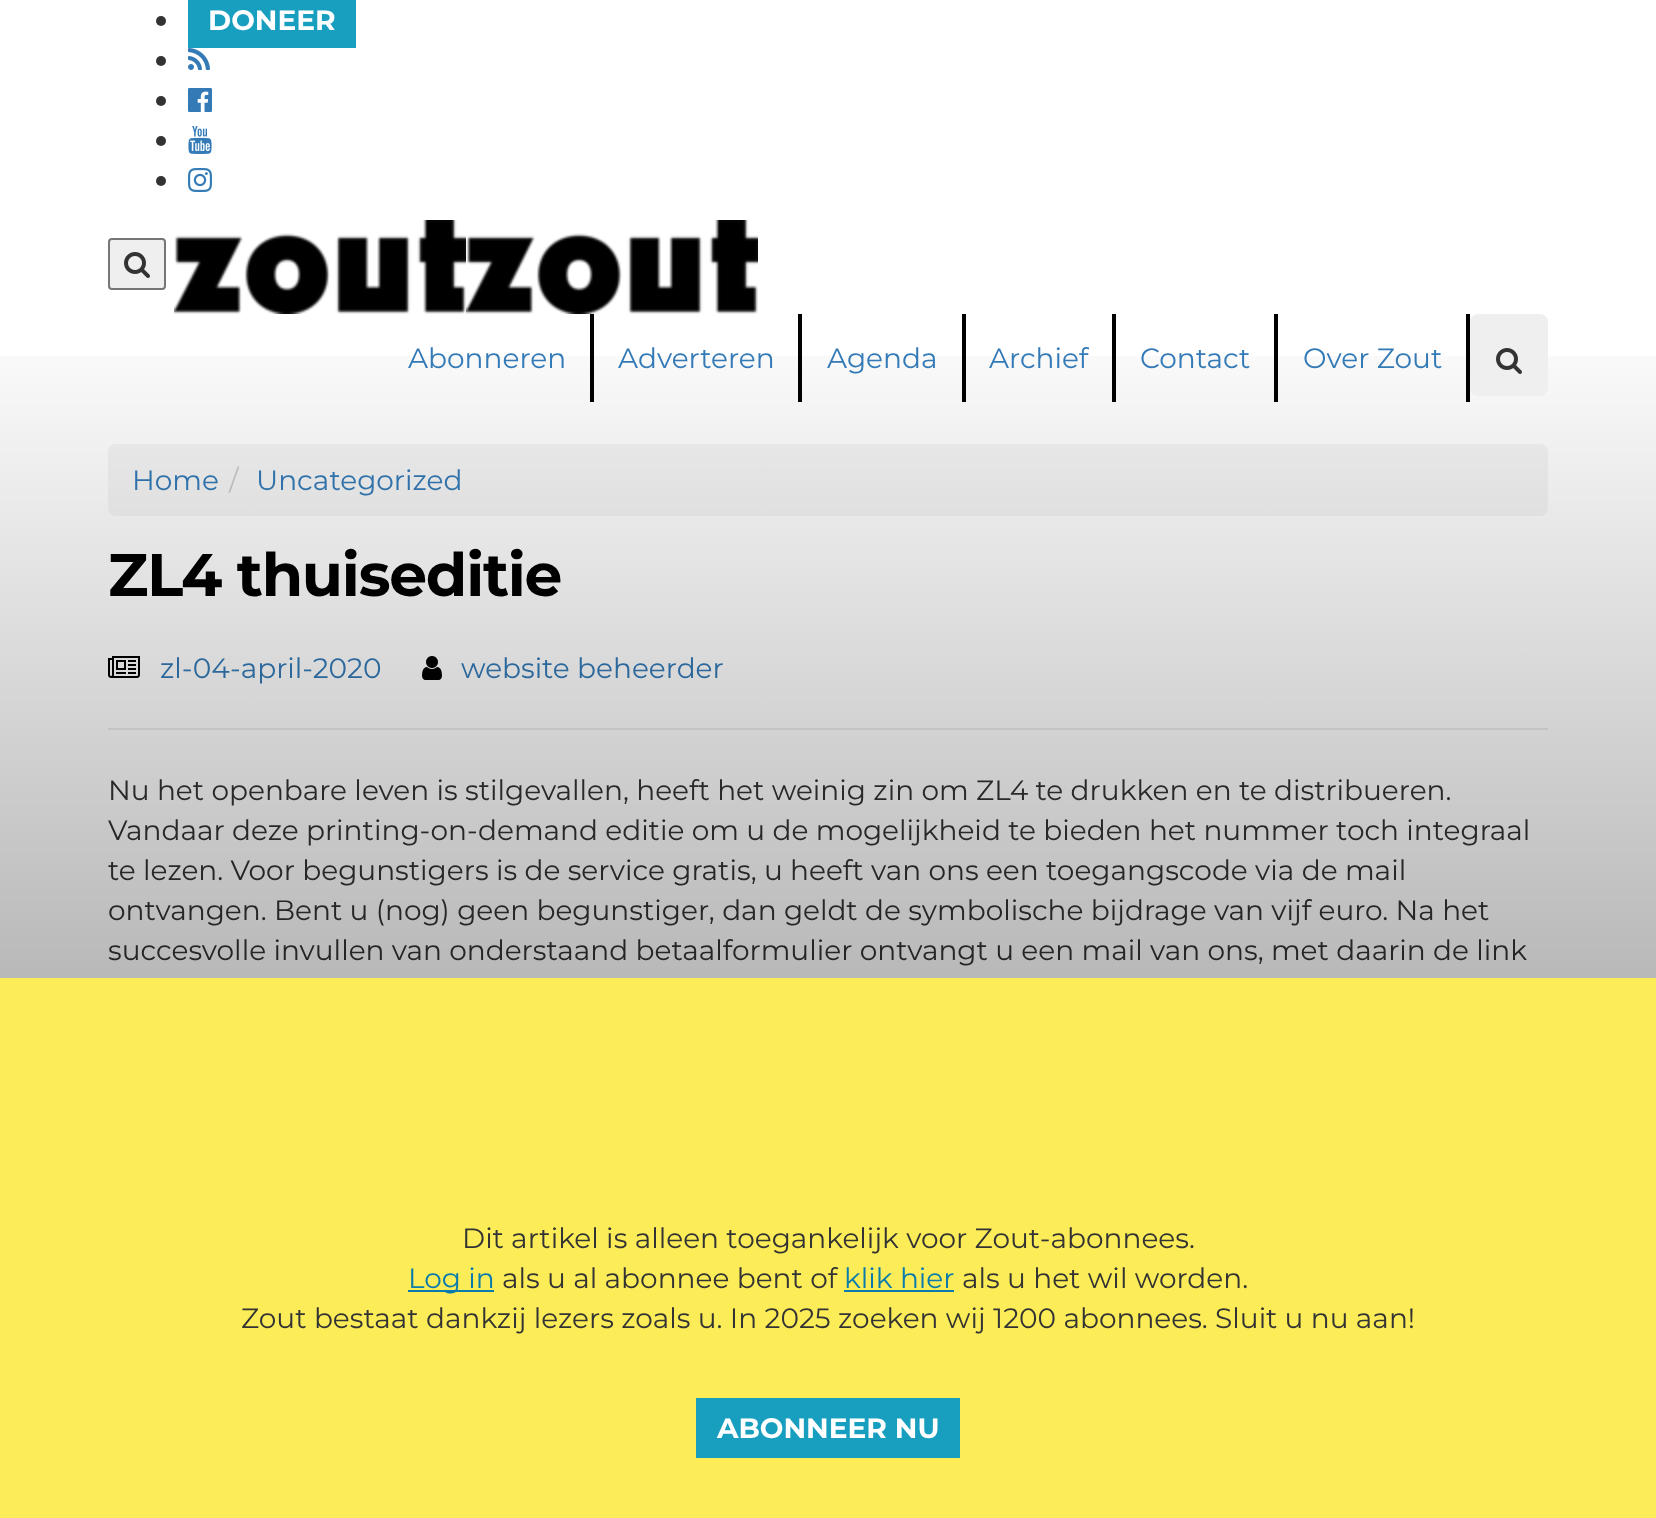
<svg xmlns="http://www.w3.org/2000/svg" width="1656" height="1518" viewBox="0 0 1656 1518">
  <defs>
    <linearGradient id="g1" gradientUnits="userSpaceOnUse" x1="828" y1="0" x2="828" y2="1518"><stop offset="0" stop-color="#000000" stop-opacity="0"/><stop offset="0.2" stop-color="#000000" stop-opacity="0"/><stop offset="1" stop-color="#000000" stop-opacity="0.5"/></linearGradient>
  </defs>
  <rect width="100%" height="100%" fill="#ffffff"/>
  <circle cx="161" cy="21" r="5" fill="#333333"/>
  <rect x="188" y="0" width="168" height="48" fill="#189ebf"/>
  <text x="208" y="30" font-family="Montserrat" font-size="28" font-weight="bold" fill="#ffffff">DONEER</text>
  <circle cx="161" cy="61" r="5" fill="#333333"/>
  <image x="188" y="48" width="22" height="22" href="img1.png"/>
  <circle cx="161" cy="101" r="5" fill="#333333"/>
  <image x="188" y="88" width="24" height="24" href="img2.png"/>
  <circle cx="161" cy="141" r="5" fill="#333333"/>
  <image x="188" y="126" width="24" height="28" href="img3.png"/>
  <circle cx="161" cy="181" r="5" fill="#333333"/>
  <image x="188" y="168" width="24" height="24" href="img4.png"/>
  <rect x="109" y="239" width="56" height="50" rx="3" fill="#efefef" stroke="#767676" stroke-width="2"/>
  <image x="124" y="252" width="26" height="26" href="img5.png"/>
  <image x="174" y="220" width="292" height="94" href="img6.png"/>
  <image x="466" y="220" width="292" height="94" href="img6.png"/>
  <rect x="108" y="444" width="1440" height="72" rx="8" fill="#f5f5f5"/>
  <text x="132" y="490" font-family="Montserrat" font-size="28" fill="#337ab7">Home</text>
  <text x="229" y="490" font-family="Montserrat" font-size="28" fill="#cccccc">/</text>
  <text x="256" y="490" font-family="Montserrat" font-size="28" fill="#337ab7">Uncategorized</text>
  <text x="108" y="596" font-family="Montserrat" font-size="60" font-weight="bold" letter-spacing="-1.25" fill="#000000">ZL4 thuiseditie</text>
  <image x="108" y="656" width="32" height="22" href="img7.png"/>
  <text x="160" y="678" font-family="Montserrat" font-size="28" fill="#337ab7">zl-04-april-2020</text>
  <image x="422" y="656" width="20" height="24" href="img8.png"/>
  <text x="461" y="678" font-family="Montserrat" font-size="28" fill="#337ab7">website beheerder</text>
  <rect x="108" y="728" width="1440" height="2" fill="#eeeeee"/>
  <text x="108" y="800" font-family="Montserrat" font-size="28" fill="#333333">Nu het openbare leven is stilgevallen, heeft het weinig zin om ZL4 te drukken en te distribueren.</text>
  <text x="108" y="840" font-family="Montserrat" font-size="28" fill="#333333">Vandaar deze printing-on-demand editie om u de mogelijkheid te bieden het nummer toch integraal</text>
  <text x="108" y="880" font-family="Montserrat" font-size="28" fill="#333333">te lezen. Voor begunstigers is de service gratis, u heeft van ons een toegangscode via de mail</text>
  <text x="108" y="920" font-family="Montserrat" font-size="28" fill="#333333">ontvangen. Bent u (nog) geen begunstiger, dan geldt de symbolische bijdrage van vijf euro. Na het</text>
  <text x="108" y="960" font-family="Montserrat" font-size="28" fill="#333333">succesvolle invullen van onderstaand betaalformulier ontvangt u een mail van ons, met daarin de link</text>
  <rect x="0" y="356" width="1656" height="622" fill="url(#g1)"/>
  <rect x="590" y="314" width="4" height="88" fill="#010101"/>
  <text x="408" y="368" font-family="Montserrat" font-size="28" fill="#337ab7">Abonneren</text>
  <rect x="798" y="314" width="4" height="88" fill="#010101"/>
  <text x="618" y="368" font-family="Montserrat" font-size="28" fill="#337ab7">Adverteren</text>
  <rect x="962" y="314" width="4" height="88" fill="#010101"/>
  <text x="827" y="368" font-family="Montserrat" font-size="28" fill="#337ab7">Agenda</text>
  <rect x="1112" y="314" width="4" height="88" fill="#010101"/>
  <text x="989" y="368" font-family="Montserrat" font-size="28" fill="#337ab7">Archief</text>
  <rect x="1274" y="314" width="4" height="88" fill="#010101"/>
  <text x="1140" y="368" font-family="Montserrat" font-size="28" fill="#337ab7">Contact</text>
  <rect x="1466" y="314" width="4" height="88" fill="#010101"/>
  <text x="1303" y="368" font-family="Montserrat" font-size="28" fill="#337ab7">Over Zout</text>
  <rect x="1470" y="314" width="78" height="82" rx="8" fill="#efefef"/>
  <image x="1496" y="348" width="26" height="26" href="img5.png"/>
  <rect x="0" y="978" width="1656" height="540" fill="#fced58"/>
  <text x="462" y="1248" font-family="Montserrat" font-size="28" fill="#333333">Dit artikel is alleen toegankelijk voor Zout-abonnees.</text>
  <rect x="408" y="1290" width="86" height="2" fill="#097bac"/>
  <text x="408" y="1288" font-family="Montserrat" font-size="28" fill="#097bac">Log in</text>
  <text x="502" y="1288" font-family="Montserrat" font-size="28" fill="#333333">als u al abonnee bent of</text>
  <text x="844" y="1288" font-family="Montserrat" font-size="28" fill="#097bac">klik hier</text>
  <rect x="844" y="1290" width="110" height="2" fill="#097bac"/>
  <text x="962" y="1288" font-family="Montserrat" font-size="28" fill="#333333">als u het wil worden.</text>
  <text x="241" y="1328" font-family="Montserrat" font-size="28" fill="#333333">Zout bestaat dankzij lezers zoals u. In 2025 zoeken wij 1200 abonnees. Sluit u nu aan!</text>
  <rect x="696" y="1398" width="264" height="60" fill="#189ebf"/>
  <text x="717" y="1438" font-family="Montserrat" font-size="28" font-weight="bold" fill="#ffffff">ABONNEER NU</text>
</svg>
